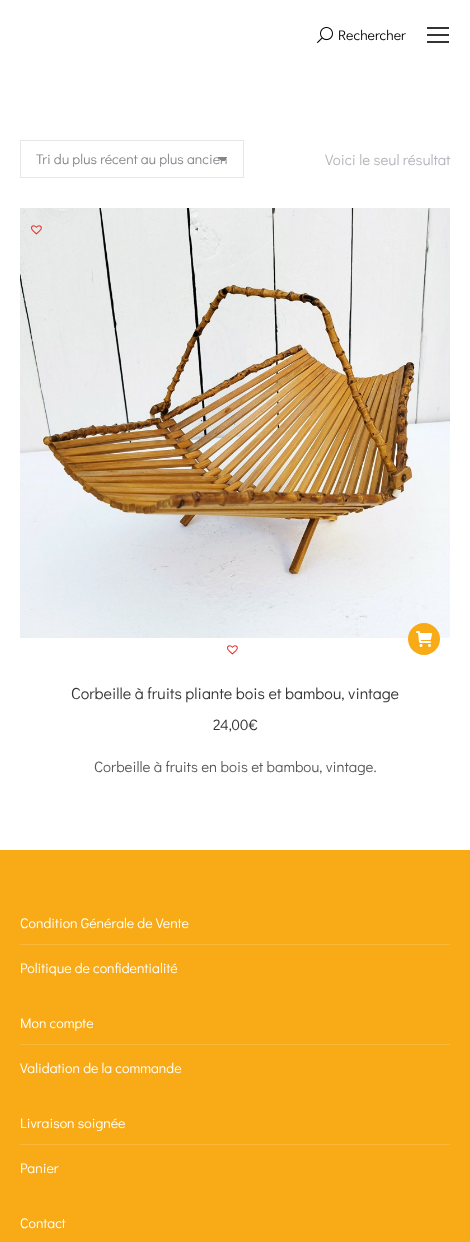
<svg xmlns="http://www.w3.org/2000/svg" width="470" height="1242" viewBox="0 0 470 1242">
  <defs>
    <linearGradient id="g1" gradientUnits="userSpaceOnUse" x1="223" y1="157" x2="228" y2="162"><stop offset="0.5" stop-color="#85868c"/><stop offset="0.5" stop-color="#ffffff"/></linearGradient>
    <linearGradient id="g2" gradientUnits="userSpaceOnUse" x1="218" y1="162" x2="223" y2="157"><stop offset="0.5" stop-color="#ffffff"/><stop offset="0.5" stop-color="#85868c"/></linearGradient>
  </defs>
  <rect width="100%" height="100%" fill="#ffffff"/>
  <image x="317" y="27" width="16" height="16" href="img1.png"/>
  <text x="338" y="40" font-family="Didact Gothic" font-size="14" fill="#000000">Rechercher</text>
  <rect x="427" y="27" width="22" height="2" fill="#333333"/>
  <rect x="427" y="34" width="22" height="2" fill="#333333"/>
  <rect x="427" y="41" width="22" height="2" fill="#333333"/>
  <rect x="223" y="157" width="5" height="4" fill="url(#g1)"/>
  <rect x="218" y="157" width="5" height="4" fill="url(#g2)"/>
  <rect x="20.5" y="140.5" width="223" height="37" fill="none" stroke="#e7e7e7"/>
  <text x="36" y="164" font-family="Didact Gothic" font-size="14" fill="#85868c">Tri du plus récent au plus ancien</text>
  <text x="325" y="165" font-family="Didact Gothic" font-size="15" fill="#b4b5bb">Voici le seul résultat</text>
  <image x="20" y="208" width="430" height="430" href="img2.png"/>
  <image x="227" y="645" width="11" height="10" href="img3.png"/>
  <circle cx="424" cy="639" r="16" fill="#f8ab17"/>
  <image x="416" y="631" width="16" height="16" href="img4.png"/>
  <image x="31" y="225" width="11" height="10" href="img5.png"/>
  <text x="71" y="699" font-family="Didact Gothic" font-size="16" fill="#333333">Corbeille à fruits pliante bois et bambou, vintage</text>
  <text x="213" y="730" font-family="Didact Gothic" font-size="15" fill="#333333">24,00€</text>
  <text x="94" y="772" font-family="Didact Gothic" font-size="15" fill="#595959">Corbeille à fruits en bois et bambou, vintage.</text>
  <rect x="0" y="850" width="470" height="392" fill="#f8ab17"/>
  <text x="20" y="928" font-family="Didact Gothic" font-size="14" fill="#ffffff">Condition Générale de Vente</text>
  <rect x="20" y="944" width="430" height="1" fill="#f9b83a"/>
  <text x="20" y="973" font-family="Didact Gothic" font-size="14" fill="#ffffff">Politique de confidentialité</text>
  <text x="20" y="1028" font-family="Didact Gothic" font-size="14" fill="#ffffff">Mon compte</text>
  <rect x="20" y="1044" width="430" height="1" fill="#f9b83a"/>
  <text x="20" y="1073" font-family="Didact Gothic" font-size="14" fill="#ffffff">Validation de la commande</text>
  <text x="20" y="1128" font-family="Didact Gothic" font-size="14" fill="#ffffff">Livraison soignée</text>
  <rect x="20" y="1144" width="430" height="1" fill="#f9b83a"/>
  <text x="20" y="1173" font-family="Didact Gothic" font-size="14" fill="#ffffff">Panier</text>
  <text x="20" y="1228" font-family="Didact Gothic" font-size="14" fill="#ffffff">Contact</text>
</svg>
